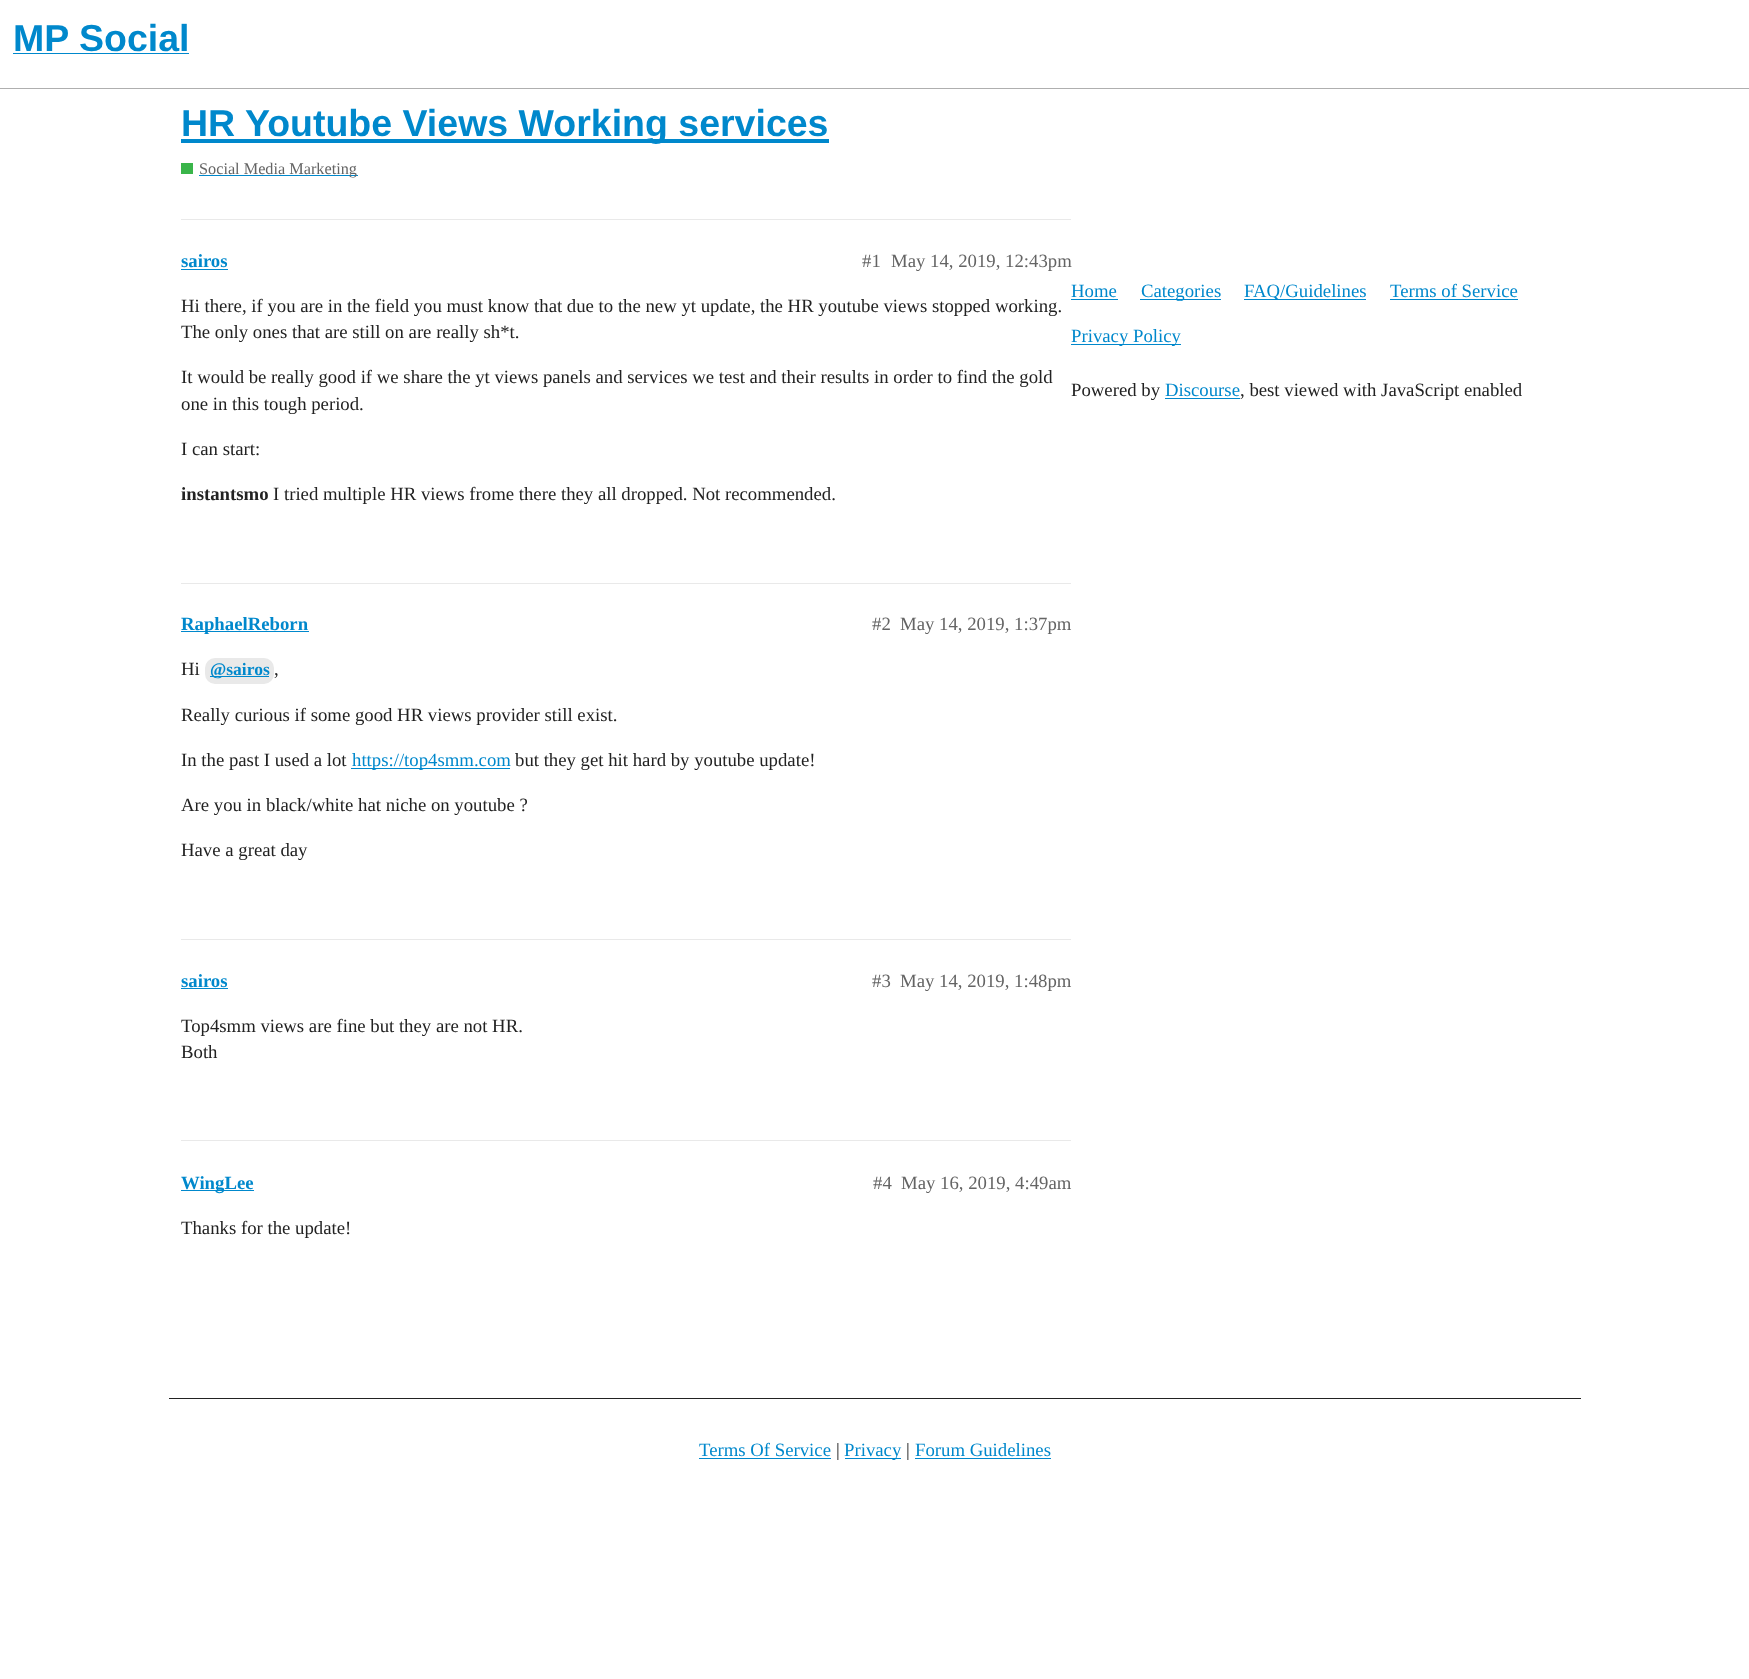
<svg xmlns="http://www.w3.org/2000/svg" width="1749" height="1679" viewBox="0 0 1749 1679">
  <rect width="100%" height="100%" fill="#ffffff"/>
  <rect x="0" y="88" width="1749" height="1" fill="#afafaf"/>
  <text x="13" y="51" font-family="Liberation Sans" font-size="37.5" font-weight="bold" fill="#0088cc">MP Social</text>
  <rect x="13" y="53" width="176" height="1" fill="#0088cc"/>
  <rect x="181" y="139" width="648" height="4" fill="#0088cc"/>
  <text x="181" y="136" font-family="Liberation Sans" font-size="37.5" font-weight="bold" fill="#0088cc">HR Youtube Views Working services</text>
  <rect x="181" y="163" width="12" height="11" fill="#3ab54a"/>
  <rect x="199" y="175" width="159" height="1" fill="#0088cc"/>
  <text x="199" y="174" font-family="Liberation Serif" font-size="16.25" fill="#646464">Social Media Marketing</text>
  <rect x="181" y="219" width="890" height="1" fill="#e9e9e9"/>
  <text x="181" y="267" font-family="Liberation Serif" font-size="18.75" font-weight="bold" fill="#0088cc">sairos</text>
  <rect x="181" y="269" width="47" height="1" fill="#0088cc"/>
  <text x="862" y="267" font-family="Liberation Serif" font-size="18.75" fill="#646464">#1</text>
  <text x="891" y="267" font-family="Liberation Serif" font-size="18.75" fill="#646464">May 14, 2019, 12:43pm</text>
  <text x="181" y="312" font-family="Liberation Serif" font-size="18.75" fill="#222222">Hi there, if you are in the field you must know that due to the new yt update, the HR youtube views stopped working.</text>
  <text x="181" y="338" font-family="Liberation Serif" font-size="18.75" fill="#222222">The only ones that are still on are really sh*t.</text>
  <text x="181" y="383" font-family="Liberation Serif" font-size="18.75" fill="#222222">It would be really good if we share the yt views panels and services we test and their results in order to find the gold</text>
  <text x="181" y="410" font-family="Liberation Serif" font-size="18.75" fill="#222222">one in this tough period.</text>
  <text x="181" y="455" font-family="Liberation Serif" font-size="18.75" fill="#222222">I can start:</text>
  <text x="181" y="500" font-family="Liberation Serif" font-size="18.75" font-weight="bold" fill="#222222">instantsmo</text>
  <text x="273" y="500" font-family="Liberation Serif" font-size="18.75" fill="#222222">I tried multiple HR views frome there they all dropped. Not recommended.</text>
  <rect x="181" y="583" width="890" height="1" fill="#e9e9e9"/>
  <rect x="181" y="631" width="128" height="1" fill="#0088cc"/>
  <text x="181" y="630" font-family="Liberation Serif" font-size="18.75" font-weight="bold" fill="#0088cc">RaphaelReborn</text>
  <text x="872" y="630" font-family="Liberation Serif" font-size="18.75" fill="#646464">#2</text>
  <text x="900" y="630" font-family="Liberation Serif" font-size="18.75" fill="#646464">May 14, 2019, 1:37pm</text>
  <text x="181" y="675" font-family="Liberation Serif" font-size="18.75" fill="#222222">Hi</text>
  <rect x="205" y="658" width="69" height="26" rx="10" fill="#e9e9e9"/>
  <rect x="210" y="676" width="59" height="1" fill="#0088cc"/>
  <text x="210" y="675" font-family="Liberation Serif" font-size="17.5" font-weight="bold" fill="#0088cc">@sairos</text>
  <text x="274" y="675" font-family="Liberation Serif" font-size="18.75" fill="#222222">,</text>
  <text x="181" y="721" font-family="Liberation Serif" font-size="18.75" fill="#222222">Really curious if some good HR views provider still exist.</text>
  <text x="181" y="766" font-family="Liberation Serif" font-size="18.75" fill="#222222">In the past I used a lot</text>
  <rect x="351" y="768" width="159" height="1" fill="#0088cc"/>
  <text x="352" y="766" font-family="Liberation Serif" font-size="18.75" fill="#0088cc">https://top4smm.com</text>
  <text x="515" y="766" font-family="Liberation Serif" font-size="18.75" fill="#222222">but they get hit hard by youtube update!</text>
  <text x="181" y="811" font-family="Liberation Serif" font-size="18.75" fill="#222222">Are you in black/white hat niche on youtube ?</text>
  <text x="181" y="856" font-family="Liberation Serif" font-size="18.75" fill="#222222">Have a great day</text>
  <rect x="181" y="939" width="890" height="1" fill="#e9e9e9"/>
  <text x="181" y="987" font-family="Liberation Serif" font-size="18.75" font-weight="bold" fill="#0088cc">sairos</text>
  <rect x="181" y="988" width="47" height="1" fill="#0088cc"/>
  <text x="872" y="987" font-family="Liberation Serif" font-size="18.75" fill="#646464">#3</text>
  <text x="900" y="987" font-family="Liberation Serif" font-size="18.75" fill="#646464">May 14, 2019, 1:48pm</text>
  <text x="181" y="1032" font-family="Liberation Serif" font-size="18.75" fill="#222222">Top4smm views are fine but they are not HR.</text>
  <text x="181" y="1058" font-family="Liberation Serif" font-size="18.75" fill="#222222">Both</text>
  <rect x="181" y="1140" width="890" height="1" fill="#e9e9e9"/>
  <rect x="181" y="1190" width="73" height="1" fill="#0088cc"/>
  <text x="181" y="1189" font-family="Liberation Serif" font-size="18.75" font-weight="bold" fill="#0088cc">WingLee</text>
  <text x="873" y="1189" font-family="Liberation Serif" font-size="18.75" fill="#646464">#4</text>
  <text x="901" y="1189" font-family="Liberation Serif" font-size="18.75" fill="#646464">May 16, 2019, 4:49am</text>
  <text x="181" y="1234" font-family="Liberation Serif" font-size="18.75" fill="#222222">Thanks for the update!</text>
  <text x="1071" y="297" font-family="Liberation Serif" font-size="18.75" fill="#0088cc">Home</text>
  <rect x="1071" y="299" width="47" height="1" fill="#0088cc"/>
  <rect x="1140" y="299" width="81" height="1" fill="#0088cc"/>
  <text x="1141" y="297" font-family="Liberation Serif" font-size="18.75" fill="#0088cc">Categories</text>
  <rect x="1244" y="299" width="122" height="1" fill="#0088cc"/>
  <text x="1244" y="297" font-family="Liberation Serif" font-size="18.75" fill="#0088cc">FAQ/Guidelines</text>
  <text x="1390" y="297" font-family="Liberation Serif" font-size="18.75" fill="#0088cc">Terms of Service</text>
  <rect x="1390" y="299" width="128" height="1" fill="#0088cc"/>
  <rect x="1071" y="344" width="110" height="1" fill="#0088cc"/>
  <text x="1071" y="342" font-family="Liberation Serif" font-size="18.75" fill="#0088cc">Privacy Policy</text>
  <text x="1071" y="396" font-family="Liberation Serif" font-size="18.75" fill="#222222">Powered by</text>
  <text x="1165" y="396" font-family="Liberation Serif" font-size="18.75" fill="#0088cc">Discourse</text>
  <rect x="1165" y="398" width="75" height="1" fill="#0088cc"/>
  <text x="1240" y="396" font-family="Liberation Serif" font-size="18.75" fill="#222222">, best viewed with JavaScript enabled</text>
  <rect x="169" y="1398" width="1412" height="1" fill="#222222"/>
  <text x="699" y="1456" font-family="Liberation Serif" font-size="18.75" fill="#0088cc">Terms Of Service</text>
  <rect x="699" y="1458" width="132" height="1" fill="#0088cc"/>
  <text x="836" y="1456" font-family="Liberation Serif" font-size="18.75" fill="#222222">|</text>
  <rect x="845" y="1458" width="56" height="1" fill="#0088cc"/>
  <text x="844" y="1456" font-family="Liberation Serif" font-size="18.75" fill="#0088cc">Privacy</text>
  <text x="906" y="1456" font-family="Liberation Serif" font-size="18.75" fill="#222222">|</text>
  <text x="915" y="1456" font-family="Liberation Serif" font-size="18.75" fill="#0088cc">Forum Guidelines</text>
  <rect x="915" y="1458" width="136" height="1" fill="#0088cc"/>
</svg>
